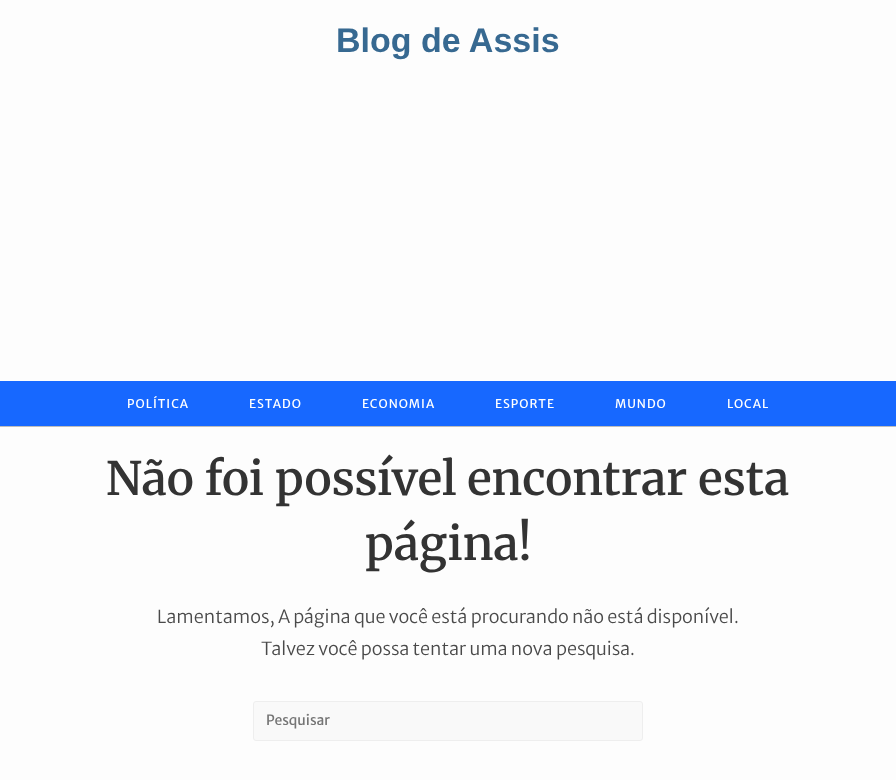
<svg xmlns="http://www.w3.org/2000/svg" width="896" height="780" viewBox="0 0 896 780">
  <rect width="100%" height="100%" fill="#fdfdfd"/>
  <rect x="0" y="426" width="896" height="1" fill="#bdbdbd"/>
  <text x="336" y="52" font-family="Liberation Sans" font-size="34" font-weight="bold" fill="#376991">Blog de Assis</text>
  <rect x="0" y="381" width="896" height="45" fill="#1768ff"/>
  <text x="127" y="408" font-family="Merriweather Sans" font-size="12" letter-spacing="1" fill="#ffffff">POLÍTICA</text>
  <text x="249" y="408" font-family="Merriweather Sans" font-size="12" letter-spacing="1" fill="#ffffff">ESTADO</text>
  <text x="362" y="408" font-family="Merriweather Sans" font-size="12" letter-spacing="1" fill="#ffffff">ECONOMIA</text>
  <text x="495" y="408" font-family="Merriweather Sans" font-size="12" letter-spacing="1" fill="#ffffff">ESPORTE</text>
  <text x="615" y="408" font-family="Merriweather Sans" font-size="12" letter-spacing="1" fill="#ffffff">MUNDO</text>
  <text x="727" y="408" font-family="Merriweather Sans" font-size="12" letter-spacing="1" fill="#ffffff">LOCAL</text>
  <text x="106" y="495" font-family="Merriweather" font-size="46" font-weight="600" fill="#333333">Não foi possível encontrar esta</text>
  <text x="365" y="560" font-family="Merriweather" font-size="46" font-weight="600" fill="#333333">página!</text>
  <text x="157" y="623" font-family="Merriweather Sans" font-size="18" font-weight="300" fill="#4a4a4a">Lamentamos, A página que você está procurando não está disponível.</text>
  <text x="261" y="655" font-family="Merriweather Sans" font-size="18" font-weight="300" fill="#4a4a4a">Talvez você possa tentar uma nova pesquisa.</text>
  <rect x="253.5" y="701.5" width="389" height="39" rx="2.5" fill="#f9f9f9" stroke="#eeeeee"/>
  <text x="266" y="725" font-family="Merriweather Sans" font-size="14" fill="#757575">Pesquisar</text>
</svg>
